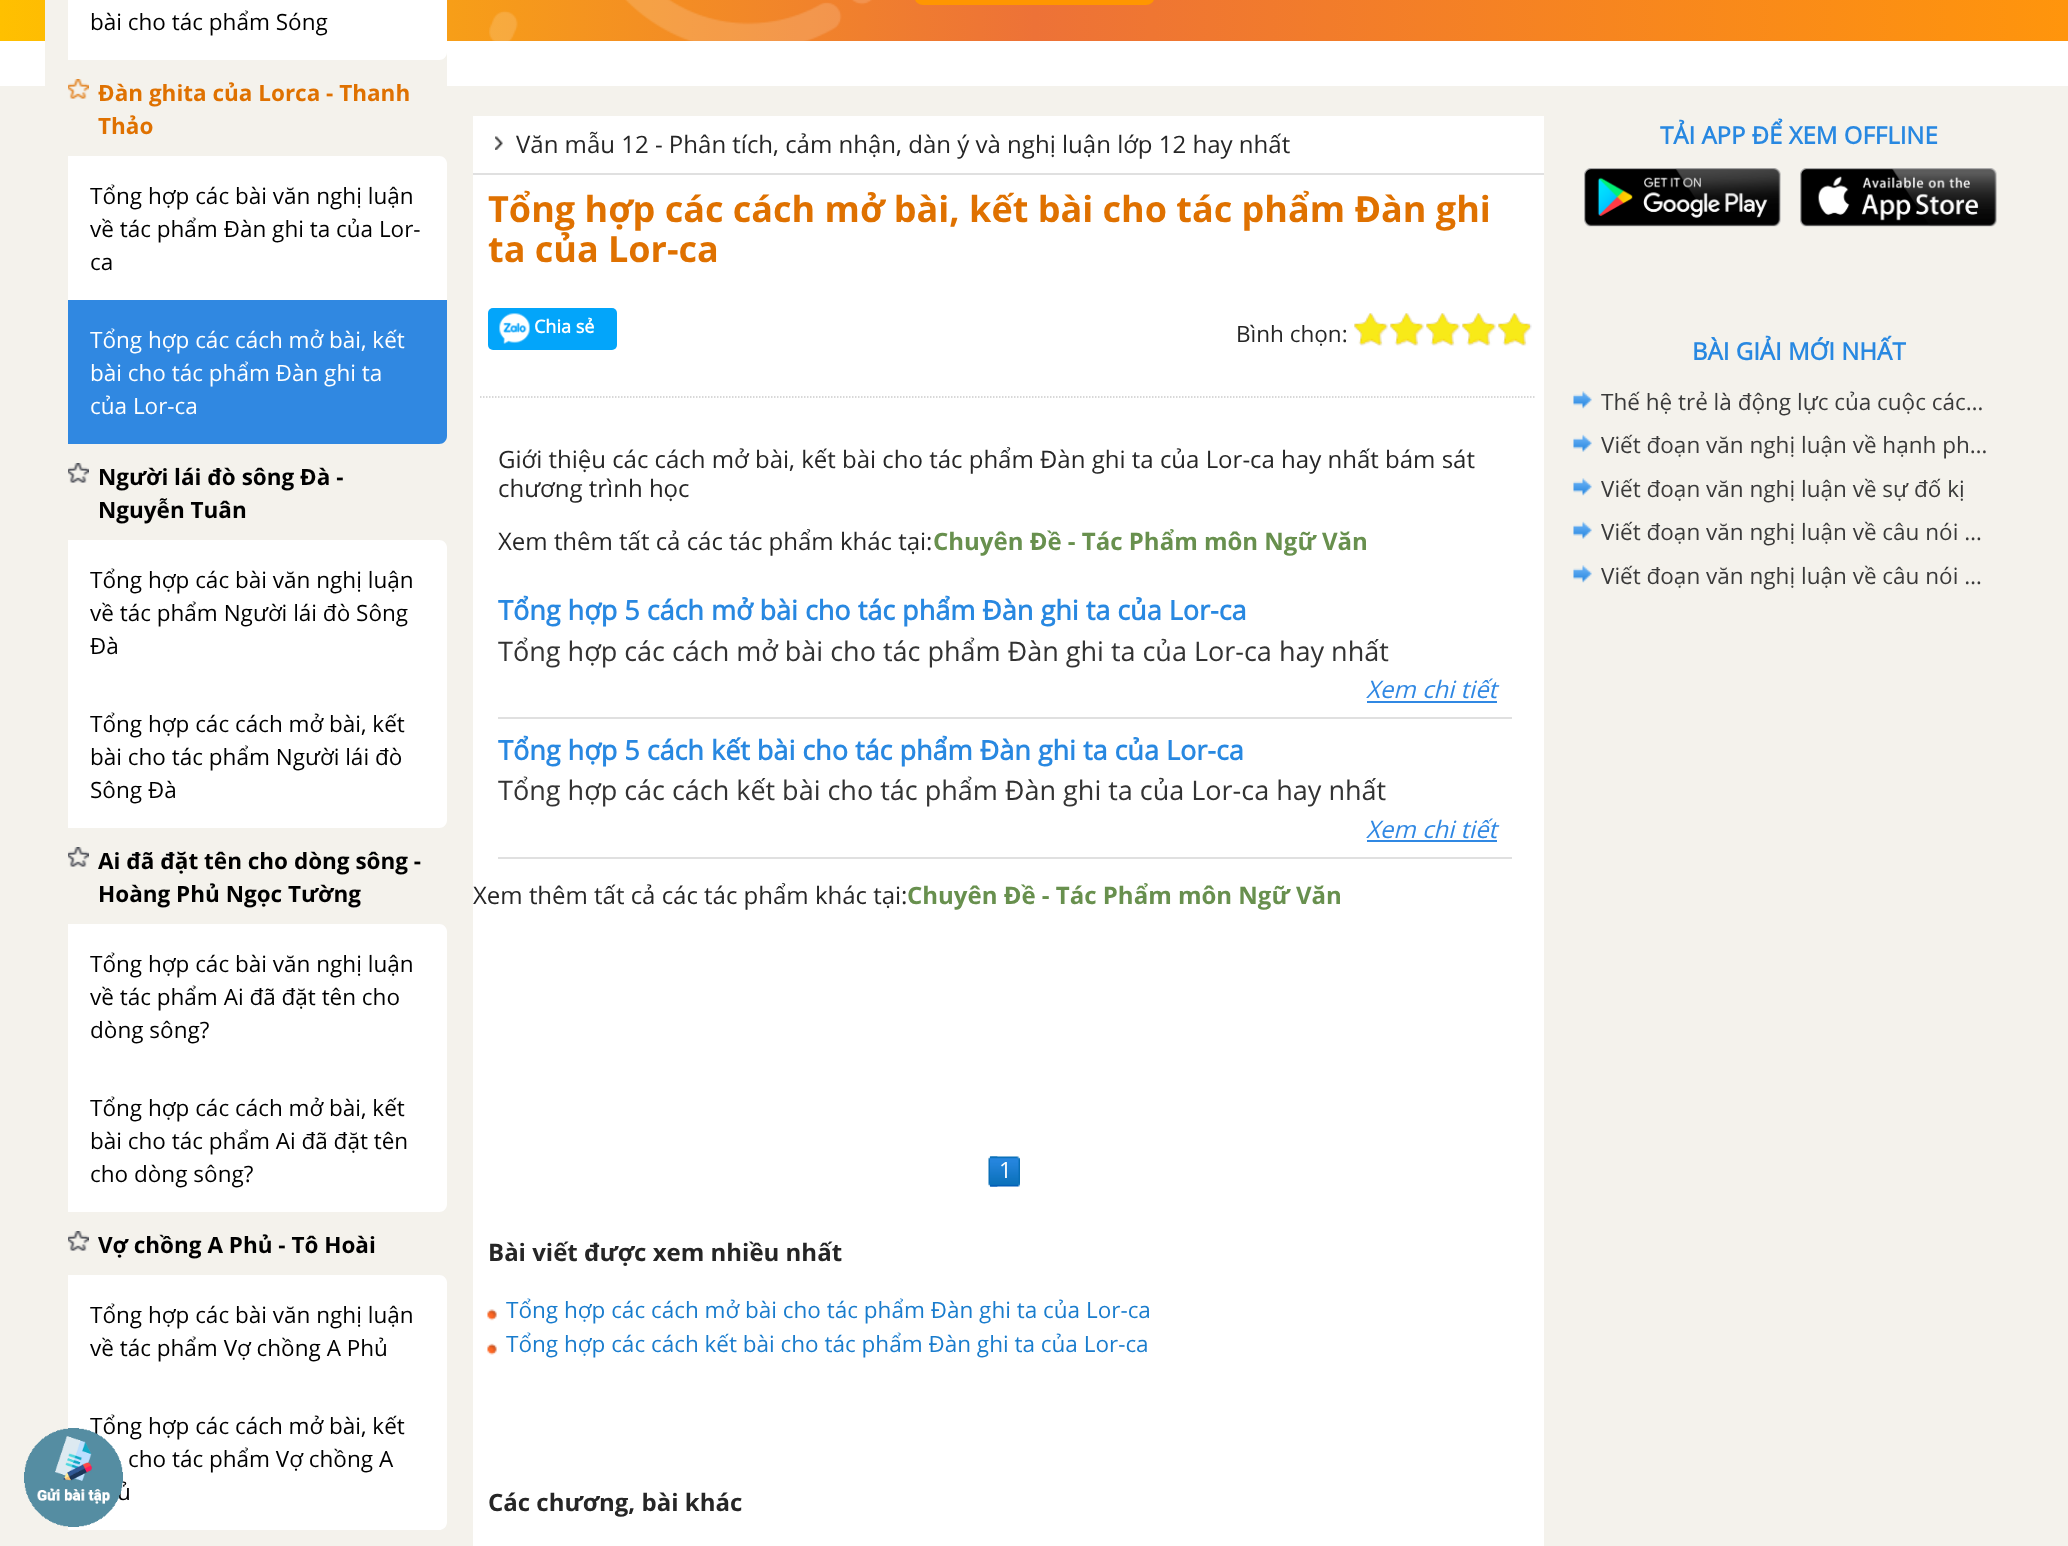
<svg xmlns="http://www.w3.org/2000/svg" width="2068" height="1546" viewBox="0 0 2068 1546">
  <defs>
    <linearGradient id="g1" gradientUnits="userSpaceOnUse" x1="0" y1="-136" x2="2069" y2="-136"><stop offset="0" stop-color="#ffc000"/><stop offset="0.5" stop-color="#ed7237"/><stop offset="1" stop-color="#ff950c"/></linearGradient>
  </defs>
  <rect width="100%" height="100%" fill="#ffffff"/>
  <rect x="0" y="0" width="2068" height="41" fill="url(#g1)"/>
  <rect x="915" y="-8" width="239" height="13" rx="8" fill="#ff9600"/>
  <image x="489" y="0" width="383" height="41" href="img1.png"/>
  <rect x="0" y="86" width="2068" height="1460" fill="#f4f2ec"/>
  <path d="M68 1386H447V1522C447 1526.5 443.5 1530 439 1530H68Z" fill="#ffffff"/>
  <text x="90" y="1434" font-family="Open Sans" font-size="22.5" fill="#000000">Tổng hợp các cách mở bài, kết</text>
  <text x="117" y="1500" font-family="Open Sans" font-size="22.5" fill="#000000">ủ</text>
  <image x="24" y="1428" width="99" height="99" href="img2.png"/>
  <rect x="45" y="0" width="402" height="86" fill="#f4f2ec"/>
  <path d="M68 0H447V52C447 56.5 443.5 60 439 60H68Z" fill="#ffffff"/>
  <text x="90" y="30" font-family="Open Sans" font-size="22.5" fill="#000000">bài cho tác phẩm Sóng</text>
  <image x="68" y="79" width="21" height="20" href="img3.png"/>
  <text x="98" y="101" font-family="Open Sans" font-size="22.5" font-weight="bold" fill="#df7100">Đàn ghita của Lorca - Thanh</text>
  <text x="98" y="134" font-family="Open Sans" font-size="22.5" font-weight="bold" fill="#df7100">Thảo</text>
  <path d="M68 156H439C443.5 156 447 159.5 447 164V300H68Z" fill="#ffffff"/>
  <text x="90" y="204" font-family="Open Sans" font-size="22.5" fill="#000000">Tổng hợp các bài văn nghị luận</text>
  <text x="90" y="237" font-family="Open Sans" font-size="22.5" fill="#000000">về tác phẩm Đàn ghi ta của Lor-</text>
  <text x="90" y="270" font-family="Open Sans" font-size="22.5" fill="#000000">ca</text>
  <path d="M68 300H447V436C447 440.5 443.5 444 439 444H68Z" fill="#3088e1"/>
  <text x="90" y="348" font-family="Open Sans" font-size="22.5" fill="#ffffff">Tổng hợp các cách mở bài, kết</text>
  <text x="90" y="381" font-family="Open Sans" font-size="22.5" fill="#ffffff">bài cho tác phẩm Đàn ghi ta</text>
  <text x="90" y="414" font-family="Open Sans" font-size="22.5" fill="#ffffff">của Lor-ca</text>
  <image x="68" y="463" width="21" height="20" href="img4.png"/>
  <text x="98" y="485" font-family="Open Sans" font-size="22.5" font-weight="bold" fill="#000000">Người lái đò sông Đà -</text>
  <text x="98" y="518" font-family="Open Sans" font-size="22.5" font-weight="bold" fill="#000000">Nguyễn Tuân</text>
  <path d="M68 540H439C443.5 540 447 543.5 447 548V684H68Z" fill="#ffffff"/>
  <text x="90" y="588" font-family="Open Sans" font-size="22.5" fill="#000000">Tổng hợp các bài văn nghị luận</text>
  <text x="90" y="621" font-family="Open Sans" font-size="22.5" fill="#000000">về tác phẩm Người lái đò Sông</text>
  <text x="90" y="654" font-family="Open Sans" font-size="22.5" fill="#000000">Đà</text>
  <path d="M68 684H447V820C447 824.5 443.5 828 439 828H68Z" fill="#ffffff"/>
  <text x="90" y="732" font-family="Open Sans" font-size="22.5" fill="#000000">Tổng hợp các cách mở bài, kết</text>
  <text x="90" y="765" font-family="Open Sans" font-size="22.5" fill="#000000">bài cho tác phẩm Người lái đò</text>
  <text x="90" y="798" font-family="Open Sans" font-size="22.5" fill="#000000">Sông Đà</text>
  <image x="68" y="847" width="21" height="20" href="img4.png"/>
  <text x="98" y="869" font-family="Open Sans" font-size="22.5" font-weight="bold" fill="#000000">Ai đã đặt tên cho dòng sông -</text>
  <text x="98" y="902" font-family="Open Sans" font-size="22.5" font-weight="bold" fill="#000000">Hoàng Phủ Ngọc Tường</text>
  <path d="M68 924H439C443.5 924 447 927.5 447 932V1068H68Z" fill="#ffffff"/>
  <text x="90" y="972" font-family="Open Sans" font-size="22.5" fill="#000000">Tổng hợp các bài văn nghị luận</text>
  <text x="90" y="1005" font-family="Open Sans" font-size="22.5" fill="#000000">về tác phẩm Ai đã đặt tên cho</text>
  <text x="90" y="1038" font-family="Open Sans" font-size="22.5" fill="#000000">dòng sông?</text>
  <path d="M68 1068H447V1204C447 1208.5 443.5 1212 439 1212H68Z" fill="#ffffff"/>
  <text x="90" y="1116" font-family="Open Sans" font-size="22.5" fill="#000000">Tổng hợp các cách mở bài, kết</text>
  <text x="90" y="1149" font-family="Open Sans" font-size="22.5" fill="#000000">bài cho tác phẩm Ai đã đặt tên</text>
  <text x="90" y="1182" font-family="Open Sans" font-size="22.5" fill="#000000">cho dòng sông?</text>
  <image x="68" y="1231" width="21" height="20" href="img4.png"/>
  <text x="98" y="1253" font-family="Open Sans" font-size="22.5" font-weight="bold" fill="#000000">Vợ chồng A Phủ - Tô Hoài</text>
  <path d="M68 1275H439C443.5 1275 447 1278.5 447 1283V1386H68Z" fill="#ffffff"/>
  <text x="90" y="1323" font-family="Open Sans" font-size="22.5" fill="#000000">Tổng hợp các bài văn nghị luận</text>
  <text x="90" y="1356" font-family="Open Sans" font-size="22.5" fill="#000000">về tác phẩm Vợ chồng A Phủ</text>
  <text x="128" y="1467" font-family="Open Sans" font-size="22.5" fill="#000000">cho tác phẩm Vợ chồng A</text>
  <rect x="473" y="116" width="1071" height="1430" fill="#ffffff"/>
  <rect x="473" y="173" width="1071" height="2" fill="#e0e0e0"/>
  <image x="495" y="136" width="8" height="14" href="img5.png"/>
  <text x="516" y="153" font-family="Open Sans" font-size="24" fill="#262626">Văn mẫu 12 - Phân tích, cảm nhận, dàn ý và nghị luận lớp 12 hay nhất</text>
  <text x="488" y="222" font-family="Open Sans" font-size="36" font-weight="bold" fill="#df7100">Tổng hợp các cách mở bài, kết bài cho tác phẩm Đàn ghi</text>
  <text x="488" y="262" font-family="Open Sans" font-size="36" font-weight="bold" fill="#df7100">ta của Lor-ca</text>
  <path d="M480 397H1536" fill="none" stroke="#cccccc" stroke-width="1.5" stroke-dasharray="1.5 1.5"/>
  <rect x="488" y="308" width="129" height="42" rx="5" fill="#03a5fa"/>
  <image x="499" y="313" width="31" height="31" href="img6.png"/>
  <text x="534" y="333" font-family="'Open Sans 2'" font-size="18" font-weight="bold" fill="#ffffff">Chia sẻ</text>
  <text x="1236" y="342" font-family="Open Sans" font-size="22.5" fill="#262626">Bình chọn:</text>
  <image x="1354" y="313" width="178" height="33" href="img7.png"/>
  <image x="1354" y="313" width="176" height="33" href="img8.png"/>
  <text x="498" y="468" font-family="Open Sans" font-size="24" fill="#262626">Giới thiệu các cách mở bài, kết bài cho tác phẩm Đàn ghi ta của Lor-ca hay nhất bám sát</text>
  <text x="498" y="497" font-family="Open Sans" font-size="24" fill="#262626">chương trình học</text>
  <text x="498" y="550" font-family="Open Sans" font-size="24" fill="#262626">Xem thêm tất cả các tác phẩm khác tại:</text>
  <text x="933" y="550" font-family="Open Sans" font-size="24" font-weight="bold" fill="#68904e">Chuyên Đề - Tác Phẩm môn Ngữ Văn</text>
  <rect x="498" y="717" width="1014" height="2" fill="#e0e0e0"/>
  <text x="498" y="620" font-family="'Open Sans 2'" font-size="27" font-weight="bold" fill="#2888e1">Tổng hợp 5 cách mở bài cho tác phẩm Đàn ghi ta của Lor-ca</text>
  <text x="498" y="661" font-family="Open Sans" font-size="27" fill="#333333">Tổng hợp các cách mở bài cho tác phẩm Đàn ghi ta của Lor-ca hay nhất</text>
  <text x="1366" y="698" font-family="Open Sans" font-size="24" font-style="italic" fill="#3088e3">Xem chi tiết</text>
  <rect x="1367" y="701" width="130" height="2" fill="#3088e3"/>
  <rect x="498" y="857" width="1014" height="2" fill="#e0e0e0"/>
  <text x="498" y="760" font-family="'Open Sans 2'" font-size="27" font-weight="bold" fill="#2888e1">Tổng hợp 5 cách kết bài cho tác phẩm Đàn ghi ta của Lor-ca</text>
  <text x="498" y="800" font-family="Open Sans" font-size="27" fill="#333333">Tổng hợp các cách kết bài cho tác phẩm Đàn ghi ta của Lor-ca hay nhất</text>
  <text x="1366" y="838" font-family="Open Sans" font-size="24" font-style="italic" fill="#3088e3">Xem chi tiết</text>
  <rect x="1367" y="840" width="130" height="2" fill="#3088e3"/>
  <text x="473" y="904" font-family="Open Sans" font-size="24" fill="#262626">Xem thêm tất cả các tác phẩm khác tại:</text>
  <text x="907" y="904" font-family="Open Sans" font-size="24" font-weight="bold" fill="#68904e">Chuyên Đề - Tác Phẩm môn Ngữ Văn</text>
  <image x="988" y="1156" width="10" height="31" href="img9.png"/>
  <image x="990" y="1156" width="30" height="31" href="img10.png"/>
  <text x="999" y="1178" font-family="Open Sans" font-size="22.5" fill="#ffffff">1</text>
  <text x="488" y="1261" font-family="Open Sans" font-size="24" font-weight="bold" fill="#262626">Bài viết được xem nhiều nhất</text>
  <image x="487" y="1309" width="10" height="12" href="img11.png"/>
  <text x="506" y="1318" font-family="Open Sans" font-size="22.5" fill="#197ccd">Tổng hợp các cách mở bài cho tác phẩm Đàn ghi ta của Lor-ca</text>
  <image x="487" y="1343" width="10" height="12" href="img12.png"/>
  <text x="506" y="1352" font-family="Open Sans" font-size="22.5" fill="#197ccd">Tổng hợp các cách kết bài cho tác phẩm Đàn ghi ta của Lor-ca</text>
  <text x="488" y="1511" font-family="Open Sans" font-size="24" font-weight="bold" fill="#262626">Các chương, bài khác</text>
  <text x="1660" y="144" font-family="'Open Sans 2'" font-size="24" font-weight="bold" fill="#2888e1">TẢI APP ĐỂ XEM OFFLINE</text>
  <image x="1584" y="168" width="197" height="59" href="img13.png"/>
  <image x="1800" y="168" width="197" height="59" href="img14.png"/>
  <text x="1692" y="360" font-family="'Open Sans 2'" font-size="24" font-weight="bold" fill="#2888e1">BÀI GIẢI MỚI NHẤT</text>
  <image x="1573" y="391" width="19" height="18" href="img15.png"/>
  <text x="1601" y="410" font-family="Open Sans" font-size="22.5" fill="#3a3a3a">Thế hệ trẻ là động lực của cuộc các…</text>
  <image x="1573" y="434" width="19" height="18" href="img16.png"/>
  <text x="1601" y="453" font-family="Open Sans" font-size="22.5" fill="#3a3a3a">Viết đoạn văn nghị luận về hạnh ph…</text>
  <image x="1573" y="478" width="19" height="18" href="img15.png"/>
  <text x="1601" y="497" font-family="Open Sans" font-size="22.5" fill="#3a3a3a">Viết đoạn văn nghị luận về sự đố kị</text>
  <image x="1573" y="521" width="19" height="18" href="img16.png"/>
  <text x="1601" y="540" font-family="Open Sans" font-size="22.5" fill="#3a3a3a">Viết đoạn văn nghị luận về câu nói …</text>
  <image x="1573" y="565" width="19" height="18" href="img15.png"/>
  <text x="1601" y="584" font-family="Open Sans" font-size="22.5" fill="#3a3a3a">Viết đoạn văn nghị luận về câu nói …</text>
</svg>
